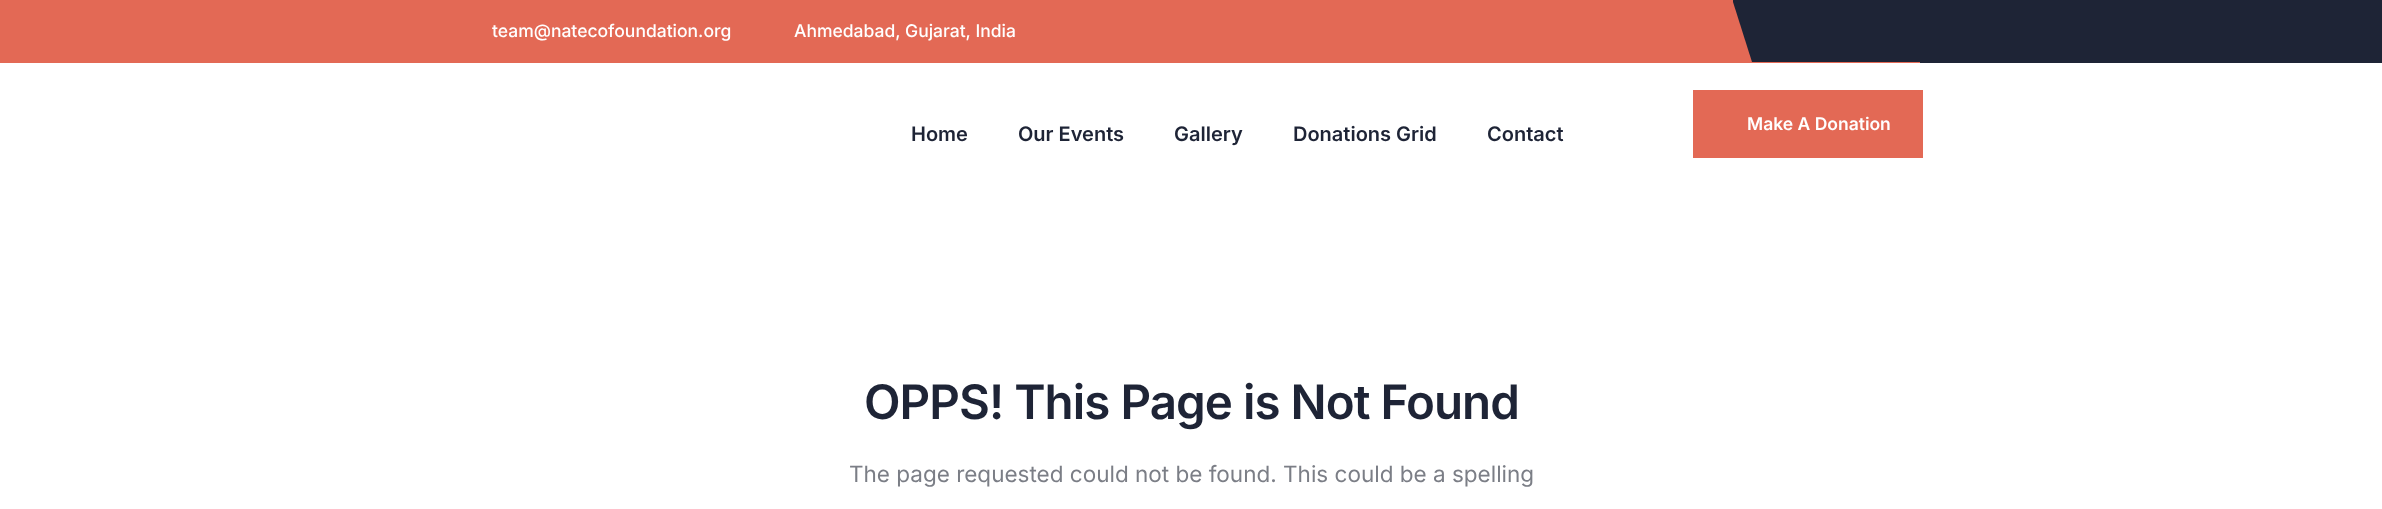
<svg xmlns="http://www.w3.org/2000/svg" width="2382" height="509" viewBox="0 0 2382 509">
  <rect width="100%" height="100%" fill="#ffffff"/>
  <rect x="0" y="0" width="1920" height="63" fill="#e36955"/>
  <text x="492" y="37" font-family="Inter" font-size="17.5" font-weight="500" fill="#ffffff">team@natecofoundation.org</text>
  <text x="794" y="37" font-family="Inter" font-size="17.5" font-weight="500" fill="#ffffff">Ahmedabad, Gujarat, India</text>
  <rect x="1920" y="0" width="462" height="63" fill="#1e2436"/>
  <path d="M1733 0V2L1752 62H1922V0Z" fill="#1e2436"/>
  <rect x="1693" y="90" width="230" height="68" fill="#e36955"/>
  <text x="1747" y="130" font-family="Inter" font-size="17.5" font-weight="600" fill="#ffffff">Make A Donation</text>
  <text x="911" y="141" font-family="Inter" font-size="20" font-weight="600" fill="#1e2436">Home</text>
  <text x="1018" y="141" font-family="Inter" font-size="20" font-weight="600" fill="#1e2436">Our Events</text>
  <text x="1174" y="141" font-family="Inter" font-size="20" font-weight="600" fill="#1e2436">Gallery</text>
  <text x="1293" y="141" font-family="Inter" font-size="20" font-weight="600" fill="#1e2436">Donations Grid</text>
  <text x="1487" y="141" font-family="Inter" font-size="20" font-weight="600" fill="#1e2436">Contact</text>
  <text x="864" y="419" font-family="Inter" font-size="47.5" font-weight="600" letter-spacing="-0.95" fill="#1e2436">OPPS! This Page is Not Found</text>
  <text x="849" y="482" font-family="Inter" font-size="22.5" fill="#7b7e86">The page requested could not be found. This could be a spelling</text>
</svg>
